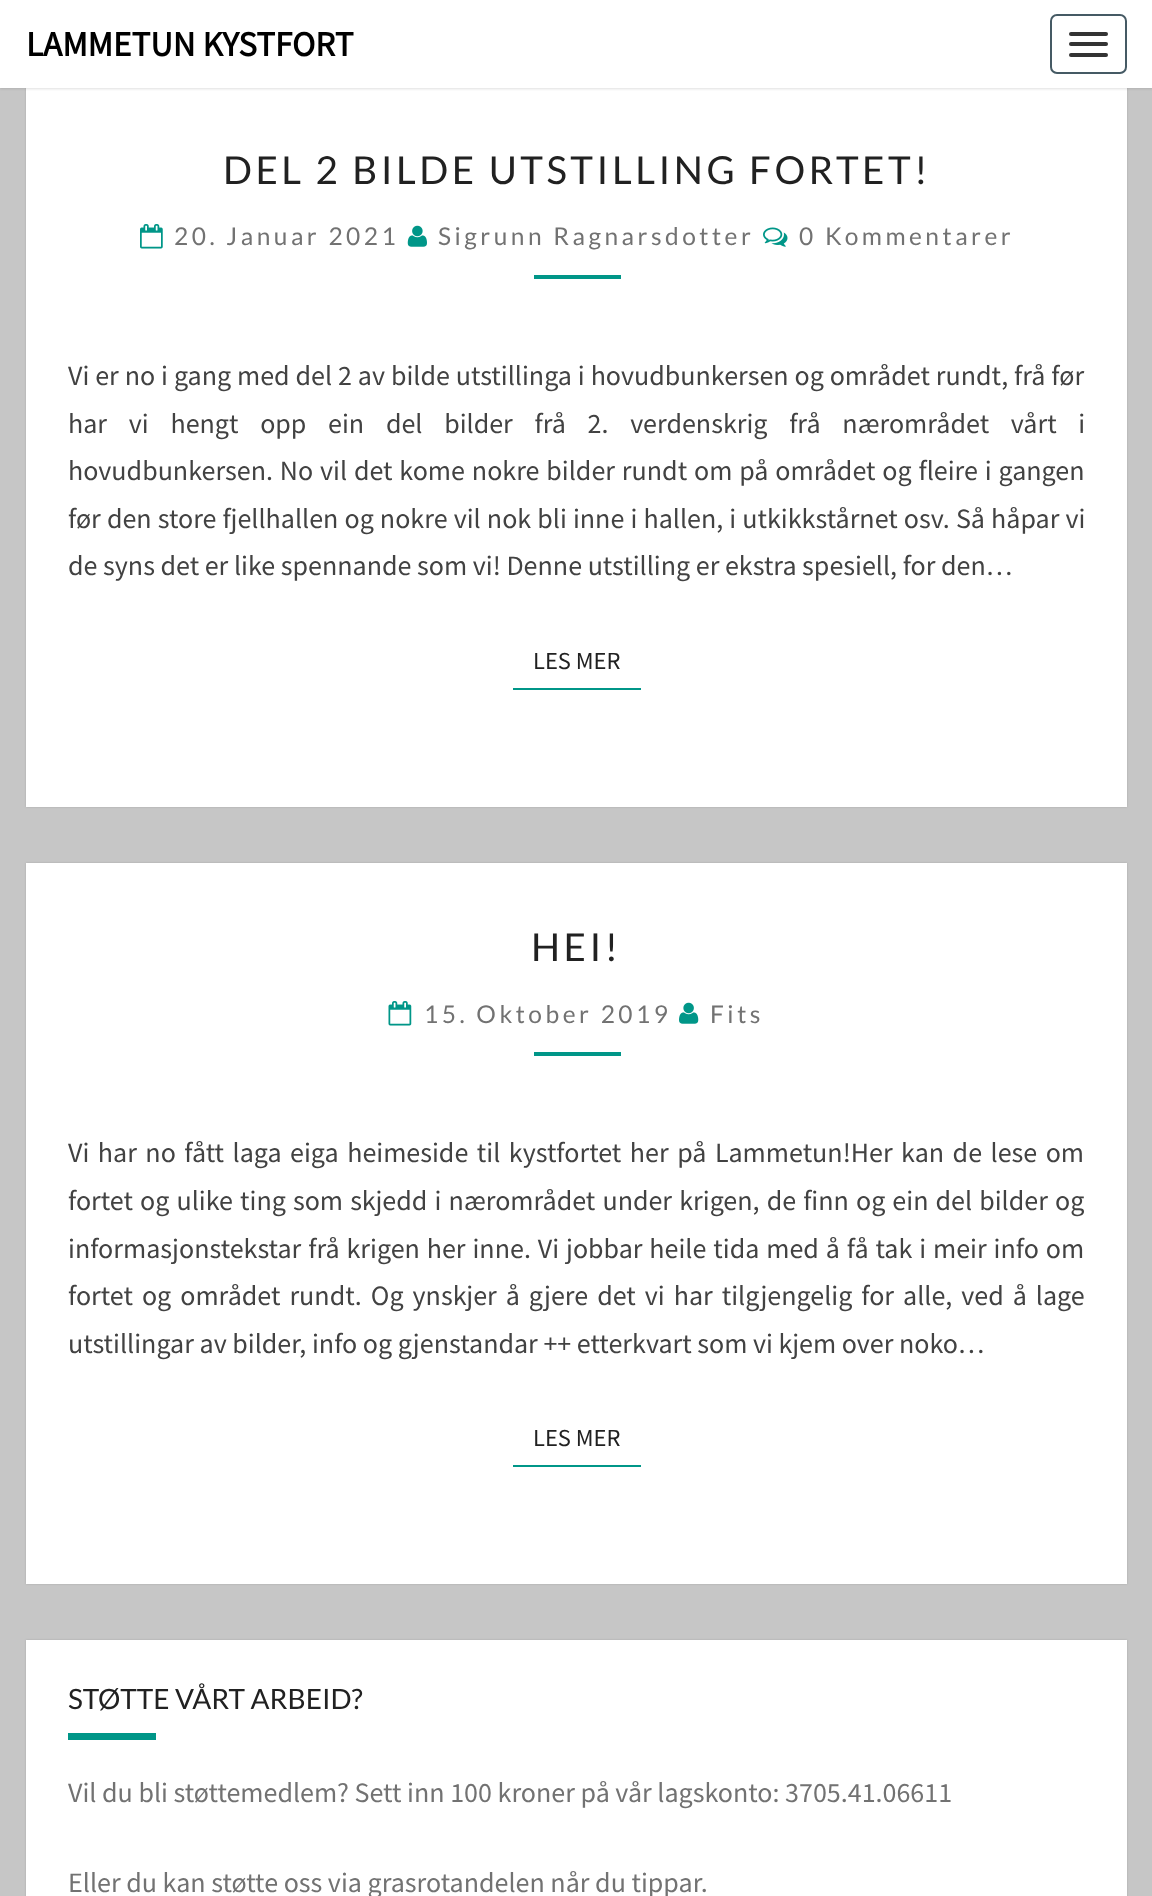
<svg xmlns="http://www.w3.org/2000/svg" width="1152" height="1896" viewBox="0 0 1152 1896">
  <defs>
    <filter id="blur1" x="-50%" y="-200%" width="200%" height="500%"><feGaussianBlur stdDeviation="1"/></filter>
  </defs>
  <rect width="100%" height="100%" fill="#c6c6c6"/>
  <rect x="26" y="86" width="1101" height="721" fill="#000000" fill-opacity="0.15" filter="url(#blur1)"/>
  <rect x="26" y="88" width="1101" height="719" fill="#ffffff"/>
  <rect x="0" y="2" width="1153" height="87" fill="#646464" fill-opacity="0.2" filter="url(#blur1)"/>
  <rect x="0" y="0" width="1152" height="88" fill="#ffffff"/>
  <text x="26" y="56" font-family="Source Sans Pro" font-size="35" font-weight="bold" fill="#000000">LAMMETUN KYSTFORT</text>
  <rect x="1051" y="15" width="75" height="58" rx="6" fill="none" stroke="#455a64" stroke-width="2"/>
  <rect x="1069" y="32" width="39" height="4" rx="2" fill="#333333"/>
  <rect x="1069" y="42" width="39" height="4" rx="2" fill="#333333"/>
  <rect x="1069" y="53" width="39" height="4" rx="2" fill="#333333"/>
  <text x="223" y="184" font-family="Lato" font-size="38.5" letter-spacing="3.5" fill="#212121">DEL 2 BILDE UTSTILLING FORTET!</text>
  <image x="140" y="224" width="23" height="25" href="img1.png"/>
  <text x="174" y="245" font-family="Lato" font-size="24.5" letter-spacing="3.5" fill="#727272">20. Januar 2021</text>
  <image x="407" y="225" width="20" height="22" href="img2.png"/>
  <text x="438" y="245" font-family="Lato" font-size="24.5" letter-spacing="3.5" fill="#727272">Sigrunn Ragnarsdotter</text>
  <image x="763" y="227" width="25" height="20" href="img3.png"/>
  <text x="799" y="245" font-family="Lato" font-size="24.5" letter-spacing="3.5" fill="#727272">0 Kommentarer</text>
  <rect x="534" y="275" width="87" height="4" fill="#009688"/>
  <text x="68" y="385" word-spacing="0.3" font-family="Source Sans Pro" font-size="28" fill="#424242">Vi er no i gang med del 2 av bilde utstillinga i hovudbunkersen og området rundt, frå før</text>
  <text x="68" y="433" word-spacing="16.1" font-family="Source Sans Pro" font-size="28" fill="#424242">har vi hengt opp ein del bilder frå 2. verdenskrig frå nærområdet vårt i</text>
  <text x="68" y="480" word-spacing="1.25" font-family="Source Sans Pro" font-size="28" fill="#424242">hovudbunkersen. No vil det kome nokre bilder rundt om på området og fleire i gangen</text>
  <text x="68" y="528" word-spacing="0.5" font-family="Source Sans Pro" font-size="28" fill="#424242">før den store fjellhallen og nokre vil nok bli inne i hallen, i utkikkstårnet osv. Så håpar vi</text>
  <text x="68" y="575" font-family="Source Sans Pro" font-size="28" fill="#424242">de syns det er like spennande som vi! Denne utstilling er ekstra spesiell, for den…</text>
  <rect x="513" y="688" width="128" height="2" fill="#009688"/>
  <text x="533" y="669" font-family="Source Sans Pro" font-size="24.5" fill="#212121">LES MER</text>
  <rect x="26" y="863" width="1101" height="721" fill="#000000" fill-opacity="0.15" filter="url(#blur1)"/>
  <rect x="26" y="863" width="1101" height="721" fill="#ffffff"/>
  <text x="531" y="961" font-family="Lato" font-size="38.5" letter-spacing="3.5" fill="#212121">HEI!</text>
  <image x="388" y="1001" width="24" height="25" href="img4.png"/>
  <text x="424" y="1023" font-family="Lato" font-size="24.5" letter-spacing="3.5" fill="#727272">15. Oktober 2019</text>
  <image x="679" y="1002" width="20" height="22" href="img5.png"/>
  <text x="710" y="1023" font-family="Lato" font-size="24.5" letter-spacing="3.5" fill="#727272">Fits</text>
  <rect x="534" y="1052" width="87" height="4" fill="#009688"/>
  <text x="68" y="1162" word-spacing="2.9" font-family="Source Sans Pro" font-size="28" fill="#424242">Vi har no fått laga eiga heimeside til kystfortet her på Lammetun!Her kan de lese om</text>
  <text x="68" y="1210" word-spacing="1.5" font-family="Source Sans Pro" font-size="28" fill="#424242">fortet og ulike ting som skjedd i nærområdet under krigen, de finn og ein del bilder og</text>
  <text x="68" y="1258" word-spacing="1.3" font-family="Source Sans Pro" font-size="28" fill="#424242">informasjonstekstar frå krigen her inne. Vi jobbar heile tida med å få tak i meir info om</text>
  <text x="68" y="1305" word-spacing="3.4" font-family="Source Sans Pro" font-size="28" fill="#424242">fortet og området rundt. Og ynskjer å gjere det vi har tilgjengelig for alle, ved å lage</text>
  <text x="68" y="1353" font-family="Source Sans Pro" font-size="28" fill="#424242">utstillingar av bilder, info og gjenstandar ++ etterkvart som vi kjem over noko…</text>
  <rect x="513" y="1465" width="128" height="2" fill="#009688"/>
  <text x="533" y="1446" font-family="Source Sans Pro" font-size="24.5" fill="#212121">LES MER</text>
  <rect x="26" y="1640" width="1101" height="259" fill="#000000" fill-opacity="0.15" filter="url(#blur1)"/>
  <rect x="26" y="1640" width="1101" height="256" fill="#ffffff"/>
  <text x="68" y="1709" font-family="Lato" font-size="28" fill="#212121">STØTTE VÅRT ARBEID?</text>
  <rect x="68" y="1733" width="88" height="7" fill="#009688"/>
  <text x="68" y="1802" font-family="Source Sans Pro" font-size="28" fill="#727272">Vil du bli støttemedlem? Sett inn 100 kroner på vår lagskonto: 3705.41.06611</text>
  <text x="68" y="1892" font-family="Source Sans Pro" font-size="28" fill="#727272">Eller du kan støtte oss via grasrotandelen når du tippar.</text>
</svg>
